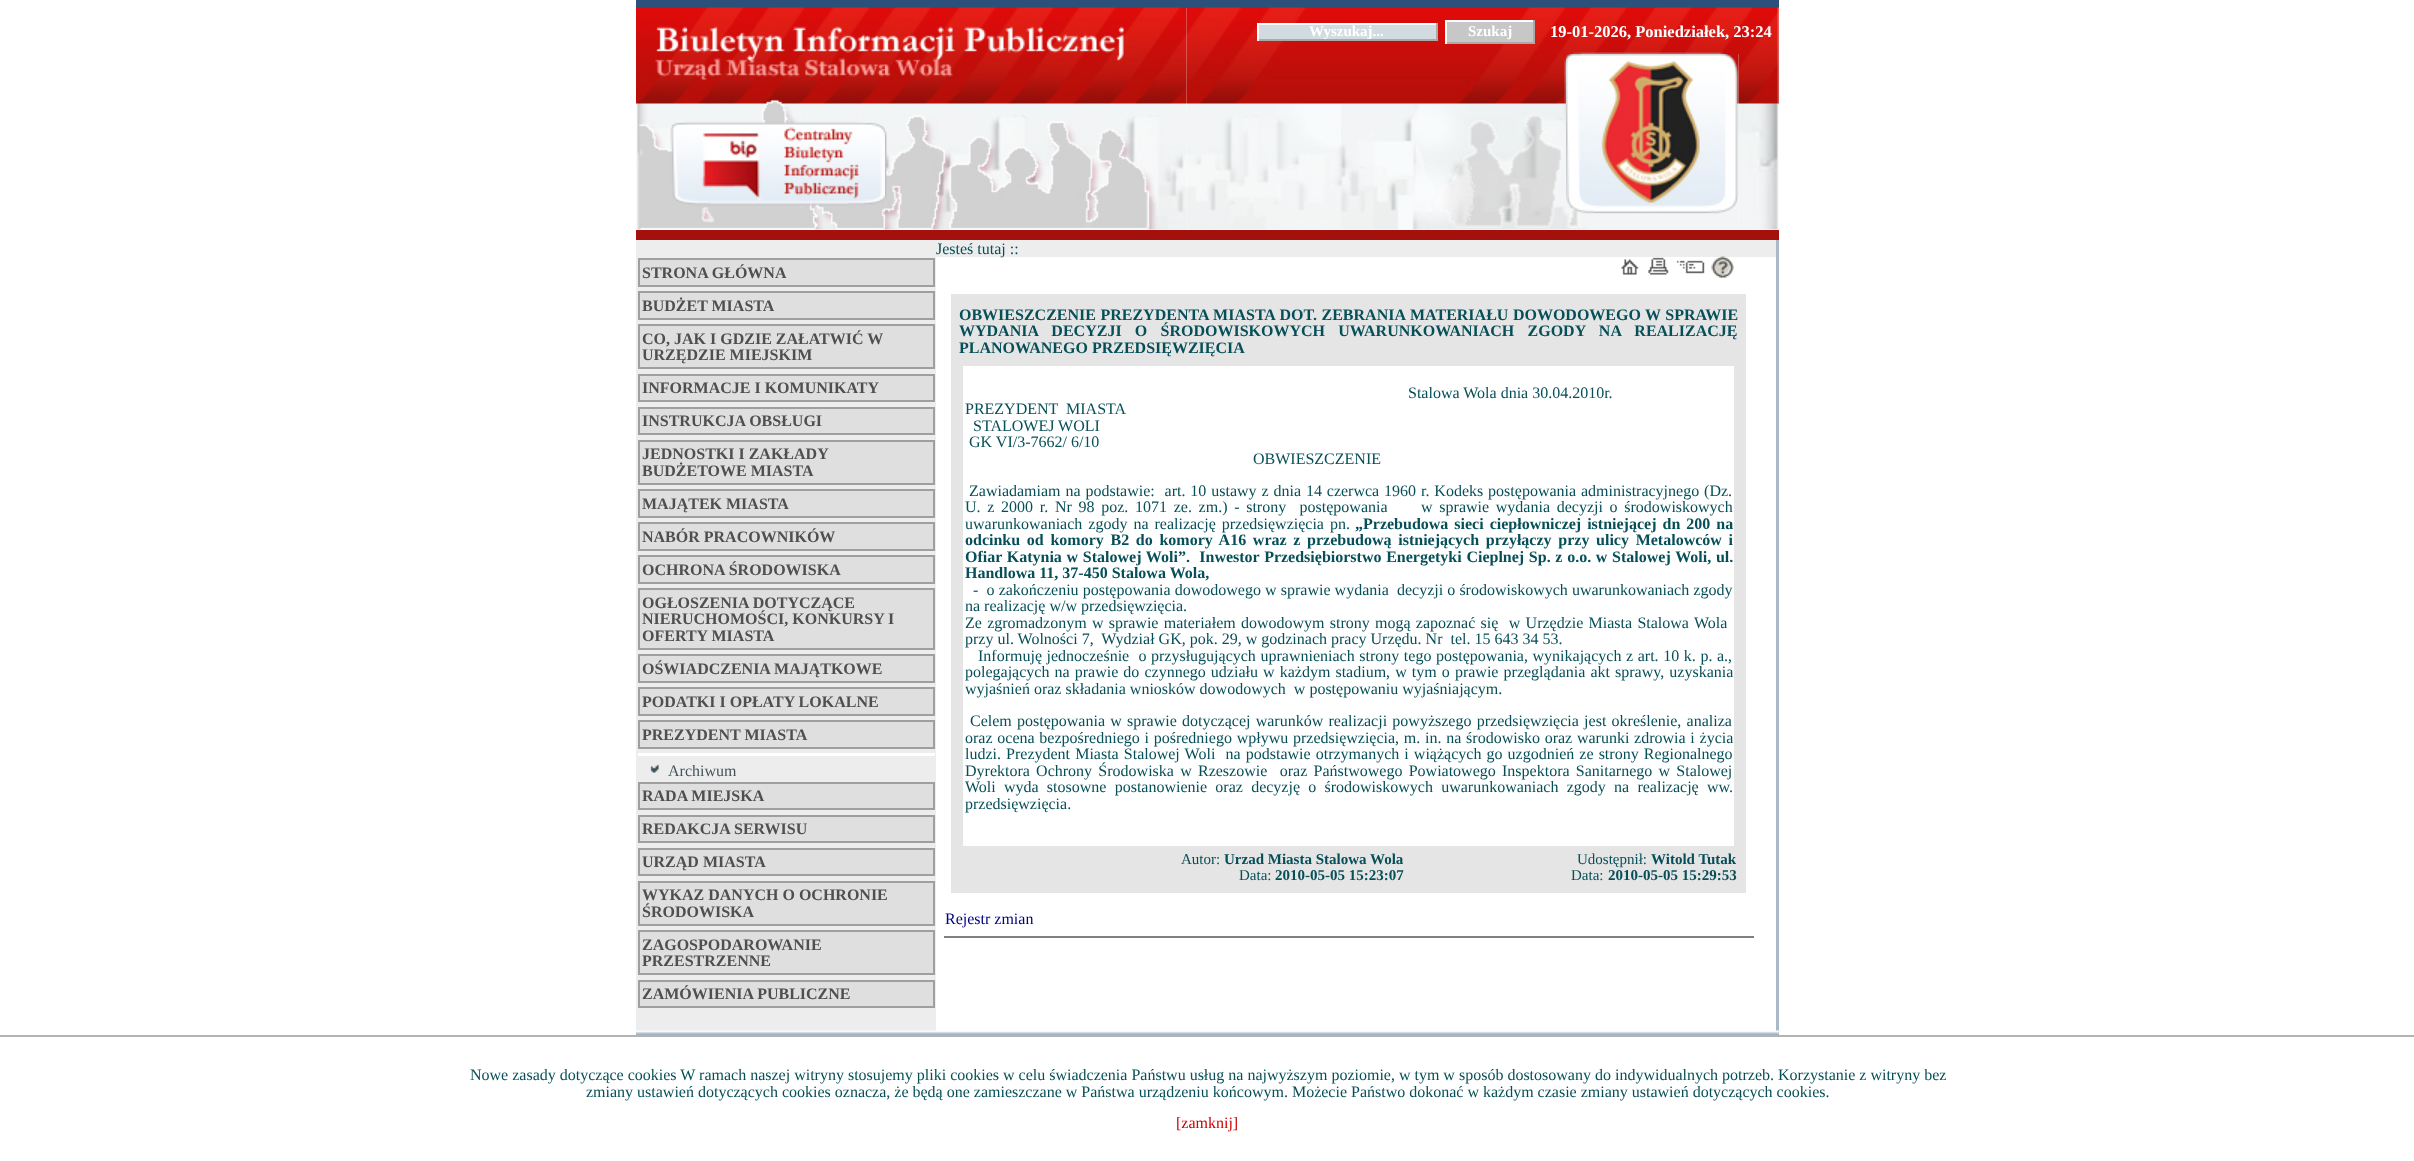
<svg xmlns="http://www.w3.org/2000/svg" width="2414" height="1161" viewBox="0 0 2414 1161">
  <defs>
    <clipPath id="clip1"><rect x="1262" y="24" width="171" height="15"/></clipPath>
  </defs>
  <rect width="100%" height="100%" fill="#ffffff"/>
  <rect x="636" y="0" width="1143" height="8" fill="#2b507a"/>
  <image x="636" y="7" width="249" height="223" href="img1.png"/>
  <image x="1186" y="7" width="593" height="47" href="img3.png"/>
  <image x="885" y="7" width="302" height="223" href="img2.png"/>
  <rect x="1259" y="25" width="177" height="14" fill="#d1dbe0"/>
  <rect x="1257" y="23" width="180" height="2" fill="#ffffff"/>
  <rect x="1436" y="23" width="2" height="18" fill="#aaaaaa"/>
  <rect x="1257" y="39" width="180" height="2" fill="#aaaaaa"/>
  <rect x="1257" y="23" width="2" height="18" fill="#ffffff"/>
  <g clip-path="url(#clip1)">
    <text x="1309" y="36" font-family="Liberation Serif" font-size="15" font-weight="bold" fill="#ffffff">Wyszukaj...</text>
  </g>
  <rect x="1447" y="22" width="86" height="20" fill="#c8c7c8"/>
  <rect x="1445" y="20" width="90" height="2" fill="#ffffff"/>
  <rect x="1533" y="20" width="2" height="24" fill="#aaaaaa"/>
  <rect x="1445" y="42" width="90" height="2" fill="#aaaaaa"/>
  <rect x="1445" y="20" width="2" height="24" fill="#ffffff"/>
  <text x="1468" y="36" font-family="Liberation Serif" font-size="15" font-weight="bold" fill="#ffffff">Szukaj</text>
  <text x="1550" y="37" font-family="Liberation Serif" font-size="16.5" font-weight="bold" fill="#ffffff">19-01-2026, Poniedziałek, 23:24</text>
  <image x="1186" y="54" width="380" height="176" href="img4.png"/>
  <image x="1566" y="54" width="173" height="176" href="img5.png"/>
  <image x="1738" y="54" width="41" height="176" href="img6.png"/>
  <rect x="636" y="230" width="1143" height="10" fill="#a4100c"/>
  <rect x="636" y="240" width="300" height="791" fill="#ededed"/>
  <rect x="639" y="259" width="295" height="27" fill="#dfdfdf" stroke="#9f9f9f" stroke-width="2"/>
  <text x="642" y="278" font-family="Liberation Serif" font-size="16" font-weight="bold" fill="#4f4f4f">STRONA GŁÓWNA</text>
  <rect x="639" y="292" width="295" height="27" fill="#dfdfdf" stroke="#9f9f9f" stroke-width="2"/>
  <text x="642" y="311" font-family="Liberation Serif" font-size="16" font-weight="bold" fill="#4f4f4f">BUDŻET MIASTA</text>
  <rect x="639" y="325" width="295" height="43" fill="#dfdfdf" stroke="#9f9f9f" stroke-width="2"/>
  <text x="642" y="344" font-family="Liberation Serif" font-size="16" font-weight="bold" fill="#4f4f4f">CO, JAK I GDZIE ZAŁATWIĆ W</text>
  <text x="642" y="360" font-family="Liberation Serif" font-size="16" font-weight="bold" fill="#4f4f4f">URZĘDZIE MIEJSKIM</text>
  <rect x="639" y="375" width="295" height="26" fill="#dfdfdf" stroke="#9f9f9f" stroke-width="2"/>
  <text x="642" y="393" font-family="Liberation Serif" font-size="16" font-weight="bold" fill="#4f4f4f">INFORMACJE I KOMUNIKATY</text>
  <rect x="639" y="408" width="295" height="26" fill="#dfdfdf" stroke="#9f9f9f" stroke-width="2"/>
  <text x="642" y="426" font-family="Liberation Serif" font-size="16" font-weight="bold" fill="#4f4f4f">INSTRUKCJA OBSŁUGI</text>
  <rect x="639" y="441" width="295" height="43" fill="#dfdfdf" stroke="#9f9f9f" stroke-width="2"/>
  <text x="642" y="459" font-family="Liberation Serif" font-size="16" font-weight="bold" fill="#4f4f4f">JEDNOSTKI I ZAKŁADY</text>
  <text x="642" y="476" font-family="Liberation Serif" font-size="16" font-weight="bold" fill="#4f4f4f">BUDŻETOWE MIASTA</text>
  <rect x="639" y="490" width="295" height="27" fill="#dfdfdf" stroke="#9f9f9f" stroke-width="2"/>
  <text x="642" y="509" font-family="Liberation Serif" font-size="16" font-weight="bold" fill="#4f4f4f">MAJĄTEK MIASTA</text>
  <rect x="639" y="523" width="295" height="27" fill="#dfdfdf" stroke="#9f9f9f" stroke-width="2"/>
  <text x="642" y="542" font-family="Liberation Serif" font-size="16" font-weight="bold" fill="#4f4f4f">NABÓR PRACOWNIKÓW</text>
  <rect x="639" y="556" width="295" height="27" fill="#dfdfdf" stroke="#9f9f9f" stroke-width="2"/>
  <text x="642" y="575" font-family="Liberation Serif" font-size="16" font-weight="bold" fill="#4f4f4f">OCHRONA ŚRODOWISKA</text>
  <rect x="639" y="589" width="295" height="60" fill="#dfdfdf" stroke="#9f9f9f" stroke-width="2"/>
  <text x="642" y="608" font-family="Liberation Serif" font-size="16" font-weight="bold" fill="#4f4f4f">OGŁOSZENIA DOTYCZĄCE</text>
  <text x="642" y="624" font-family="Liberation Serif" font-size="16" font-weight="bold" fill="#4f4f4f">NIERUCHOMOŚCI, KONKURSY I</text>
  <text x="642" y="641" font-family="Liberation Serif" font-size="16" font-weight="bold" fill="#4f4f4f">OFERTY MIASTA</text>
  <rect x="639" y="655" width="295" height="27" fill="#dfdfdf" stroke="#9f9f9f" stroke-width="2"/>
  <text x="642" y="674" font-family="Liberation Serif" font-size="16" font-weight="bold" fill="#4f4f4f">OŚWIADCZENIA MAJĄTKOWE</text>
  <rect x="639" y="688" width="295" height="27" fill="#dfdfdf" stroke="#9f9f9f" stroke-width="2"/>
  <text x="642" y="707" font-family="Liberation Serif" font-size="16" font-weight="bold" fill="#4f4f4f">PODATKI I OPŁATY LOKALNE</text>
  <rect x="639" y="721" width="295" height="27" fill="#dfdfdf" stroke="#9f9f9f" stroke-width="2"/>
  <text x="642" y="740" font-family="Liberation Serif" font-size="16" font-weight="bold" fill="#4f4f4f">PREZYDENT MIASTA</text>
  <image x="650" y="764" width="9" height="9" href="img7.png"/>
  <rect x="638" y="753" width="297" height="3" fill="#ffffff"/>
  <text x="668" y="776" font-family="Liberation Serif" font-size="16" fill="#435559">Archiwum</text>
  <rect x="639" y="783" width="295" height="26" fill="#dfdfdf" stroke="#9f9f9f" stroke-width="2"/>
  <text x="642" y="801" font-family="Liberation Serif" font-size="16" font-weight="bold" fill="#4f4f4f">RADA MIEJSKA</text>
  <rect x="639" y="816" width="295" height="26" fill="#dfdfdf" stroke="#9f9f9f" stroke-width="2"/>
  <text x="642" y="834" font-family="Liberation Serif" font-size="16" font-weight="bold" fill="#4f4f4f">REDAKCJA SERWISU</text>
  <rect x="639" y="849" width="295" height="26" fill="#dfdfdf" stroke="#9f9f9f" stroke-width="2"/>
  <text x="642" y="867" font-family="Liberation Serif" font-size="16" font-weight="bold" fill="#4f4f4f">URZĄD MIASTA</text>
  <rect x="639" y="882" width="295" height="43" fill="#dfdfdf" stroke="#9f9f9f" stroke-width="2"/>
  <text x="642" y="900" font-family="Liberation Serif" font-size="16" font-weight="bold" fill="#4f4f4f">WYKAZ DANYCH O OCHRONIE</text>
  <text x="642" y="917" font-family="Liberation Serif" font-size="16" font-weight="bold" fill="#4f4f4f">ŚRODOWISKA</text>
  <rect x="639" y="931" width="295" height="43" fill="#dfdfdf" stroke="#9f9f9f" stroke-width="2"/>
  <text x="642" y="950" font-family="Liberation Serif" font-size="16" font-weight="bold" fill="#4f4f4f">ZAGOSPODAROWANIE</text>
  <text x="642" y="966" font-family="Liberation Serif" font-size="16" font-weight="bold" fill="#4f4f4f">PRZESTRZENNE</text>
  <rect x="639" y="981" width="295" height="26" fill="#dfdfdf" stroke="#9f9f9f" stroke-width="2"/>
  <text x="642" y="999" font-family="Liberation Serif" font-size="16" font-weight="bold" fill="#4f4f4f">ZAMÓWIENIA PUBLICZNE</text>
  <rect x="936" y="240" width="840" height="17" fill="#ededed"/>
  <text x="936" y="254" font-family="Liberation Serif" font-size="16" fill="#064f58">Jesteś tutaj ::</text>
  <image x="1621" y="259" width="18" height="16" href="img8.png"/>
  <image x="1648" y="257" width="21" height="18" href="img9.png"/>
  <image x="1676" y="260" width="29" height="14" href="img10.png"/>
  <image x="1711" y="256" width="23" height="22" href="img11.png"/>
  <rect x="951" y="294" width="795" height="599" fill="#e5e5e5"/>
  <text x="959" y="320" word-spacing="0.5" font-family="Liberation Serif" font-size="16" font-weight="bold" fill="#064f58">OBWIESZCZENIE PREZYDENTA MIASTA DOT. ZEBRANIA</text>
  <text x="1410" y="320" word-spacing="0.5" font-family="Liberation Serif" font-size="16" font-weight="bold" fill="#064f58">MATERIAŁU DOWODOWEGO W SPRAWIE</text>
  <text x="959" y="336" word-spacing="9.25" font-family="Liberation Serif" font-size="16" font-weight="bold" fill="#064f58">WYDANIA DECYZJI O ŚRODOWISKOWYCH UWARUNKOWANIACH ZGODY NA REALIZACJĘ</text>
  <text x="959" y="353" font-family="Liberation Serif" font-size="16" font-weight="bold" fill="#064f58">PLANOWANEGO PRZEDSIĘWZIĘCIA</text>
  <rect x="963" y="366" width="771" height="480" fill="#ffffff"/>
  <text x="1408" y="398" font-family="Liberation Serif" font-size="16" fill="#064f58">Stalowa Wola dnia 30.04.2010r.</text>
  <text x="965" y="414" font-family="Liberation Serif" font-size="16" fill="#064f58" xml:space="preserve">PREZYDENT  MIASTA</text>
  <text x="973" y="431" font-family="Liberation Serif" font-size="16" fill="#064f58">STALOWEJ WOLI</text>
  <text x="969" y="447" font-family="Liberation Serif" font-size="16" fill="#064f58">GK VI/3-7662/ 6/10</text>
  <text x="1253" y="464" font-family="Liberation Serif" font-size="16" fill="#064f58">OBWIESZCZENIE</text>
  <text x="969" y="496" word-spacing="0.9" font-family="Liberation Serif" font-size="16" fill="#064f58" xml:space="preserve">Zawiadamiam na podstawie:  art. 10 ustawy z dnia 14 czerwca 1960 r. Kodeks postępowania administracyjnego (Dz.</text>
  <text x="965" y="512" word-spacing="2.7" font-family="Liberation Serif" font-size="16" fill="#064f58" xml:space="preserve">U. z 2000 r. Nr 98 poz. 1071 ze. zm.) - strony  postępowania     w sprawie wydania decyzji o środowiskowych</text>
  <text x="965" y="529" word-spacing="2" font-family="Liberation Serif" font-size="16" fill="#064f58">uwarunkowaniach zgody na realizację przedsięwzięcia pn.</text>
  <text x="1355" y="529" word-spacing="2" font-family="Liberation Serif" font-size="16" font-weight="bold" fill="#064f58">„Przebudowa sieci ciepłowniczej istniejącej dn 200 na</text>
  <text x="965" y="545" word-spacing="2.7" font-family="Liberation Serif" font-size="16" font-weight="bold" fill="#064f58">odcinku od komory B2 do komory A16 wraz z przebudową istniejących przyłączy przy ulicy Metalowców i</text>
  <text x="965" y="562" word-spacing="0.7" font-family="Liberation Serif" font-size="16" font-weight="bold" fill="#064f58" xml:space="preserve">Ofiar Katynia w Stalowej Woli”.  Inwestor Przedsiębiorstwo Energetyki Cieplnej Sp. z o.o. w Stalowej Woli, ul.</text>
  <text x="965" y="578" font-family="Liberation Serif" font-size="16" font-weight="bold" fill="#064f58">Handlowa 11, 37-450 Stalowa Wola,</text>
  <text x="973" y="595" word-spacing="0.1" font-family="Liberation Serif" font-size="16" fill="#064f58" xml:space="preserve">-  o zakończeniu postępowania dowodowego w sprawie wydania  decyzji o środowiskowych uwarunkowaniach zgody</text>
  <text x="965" y="611" font-family="Liberation Serif" font-size="16" fill="#064f58">na realizację w/w przedsięwzięcia.</text>
  <text x="965" y="628" word-spacing="1.25" font-family="Liberation Serif" font-size="16" fill="#064f58" xml:space="preserve">Ze zgromadzonym w sprawie materiałem dowodowym strony mogą zapoznać się  w Urzędzie Miasta Stalowa Wola</text>
  <text x="965" y="644" font-family="Liberation Serif" font-size="16" fill="#064f58" xml:space="preserve">przy ul. Wolności 7,  Wydział GK, pok. 29, w godzinach pracy Urzędu. Nr  tel. 15 643 34 53.</text>
  <text x="978" y="661" word-spacing="0.6" font-family="Liberation Serif" font-size="16" fill="#064f58" xml:space="preserve">Informuję jednocześnie  o przysługujących uprawnieniach strony tego postępowania, wynikających z art. 10 k. p. a.,</text>
  <text x="965" y="677" word-spacing="1.1" font-family="Liberation Serif" font-size="16" fill="#064f58">polegających na prawie do czynnego udziału w każdym stadium, w tym o prawie przeglądania akt sprawy, uzyskania</text>
  <text x="965" y="694" font-family="Liberation Serif" font-size="16" fill="#064f58" xml:space="preserve">wyjaśnień oraz składania wniosków dowodowych  w postępowaniu wyjaśniającym.</text>
  <text x="970" y="726" word-spacing="1.25" font-family="Liberation Serif" font-size="16" fill="#064f58">Celem postępowania w sprawie dotyczącej warunków realizacji powyższego przedsięwzięcia jest określenie, analiza</text>
  <text x="965" y="743" word-spacing="0.75" font-family="Liberation Serif" font-size="16" fill="#064f58">oraz ocena bezpośredniego i pośredniego wpływu przedsięwzięcia, m. in. na środowisko oraz warunki zdrowia i życia</text>
  <text x="965" y="759" word-spacing="1.1" font-family="Liberation Serif" font-size="16" fill="#064f58" xml:space="preserve">ludzi. Prezydent Miasta Stalowej Woli  na podstawie otrzymanych i wiążących go uzgodnień ze strony Regionalnego</text>
  <text x="965" y="776" word-spacing="2.25" font-family="Liberation Serif" font-size="16" fill="#064f58" xml:space="preserve">Dyrektora Ochrony Środowiska w Rzeszowie  oraz Państwowego Powiatowego Inspektora Sanitarnego w Stalowej</text>
  <text x="965" y="792" word-spacing="4.25" font-family="Liberation Serif" font-size="16" fill="#064f58">Woli wyda stosowne postanowienie oraz decyzję o środowiskowych uwarunkowaniach zgody na realizację ww.</text>
  <text x="965" y="809" font-family="Liberation Serif" font-size="16" fill="#064f58">przedsięwzięcia.</text>
  <text x="1181" y="864" font-family="Liberation Serif" font-size="15" fill="#064f58">Autor:</text>
  <text x="1224" y="864" font-family="Liberation Serif" font-size="15" font-weight="bold" fill="#064f58">Urzad Miasta Stalowa Wola</text>
  <text x="1239" y="880" font-family="Liberation Serif" font-size="15" fill="#064f58">Data:</text>
  <text x="1275" y="880" font-family="Liberation Serif" font-size="15" font-weight="bold" fill="#064f58">2010-05-05 15:23:07</text>
  <text x="1577" y="864" font-family="Liberation Serif" font-size="15" fill="#064f58">Udostępnił:</text>
  <text x="1651" y="864" font-family="Liberation Serif" font-size="15" font-weight="bold" fill="#064f58">Witold Tutak</text>
  <text x="1571" y="880" font-family="Liberation Serif" font-size="15" fill="#064f58">Data:</text>
  <text x="1608" y="880" font-family="Liberation Serif" font-size="15" font-weight="bold" fill="#064f58">2010-05-05 15:29:53</text>
  <text x="945" y="924" font-family="Liberation Serif" font-size="16" fill="#000080">Rejestr zmian</text>
  <rect x="944" y="936" width="810" height="2" fill="#808080"/>
  <rect x="1776" y="240" width="3" height="791" fill="#aab8c7"/>
  <image x="636" y="1030" width="1143" height="5" href="img12.png"/>
  <rect x="0" y="1035" width="2414" height="2" fill="#b3b3b3"/>
  <text x="470" y="1080" font-family="Liberation Serif" font-size="16" fill="#064f58">Nowe zasady dotyczące cookies W ramach naszej witryny stosujemy pliki cookies w celu świadczenia Państwu usług na najwyższym poziomie, w tym w sposób dostosowany do indywidualnych potrzeb. Korzystanie z witryny bez</text>
  <text x="586" y="1097" font-family="Liberation Serif" font-size="16" fill="#064f58">zmiany ustawień dotyczących cookies oznacza, że będą one zamieszczane w Państwa urządzeniu końcowym. Możecie Państwo dokonać w każdym czasie zmiany ustawień dotyczących cookies.</text>
  <text x="1176" y="1128" font-family="Liberation Serif" font-size="16" fill="#cc0000">[zamknij]</text>
</svg>
